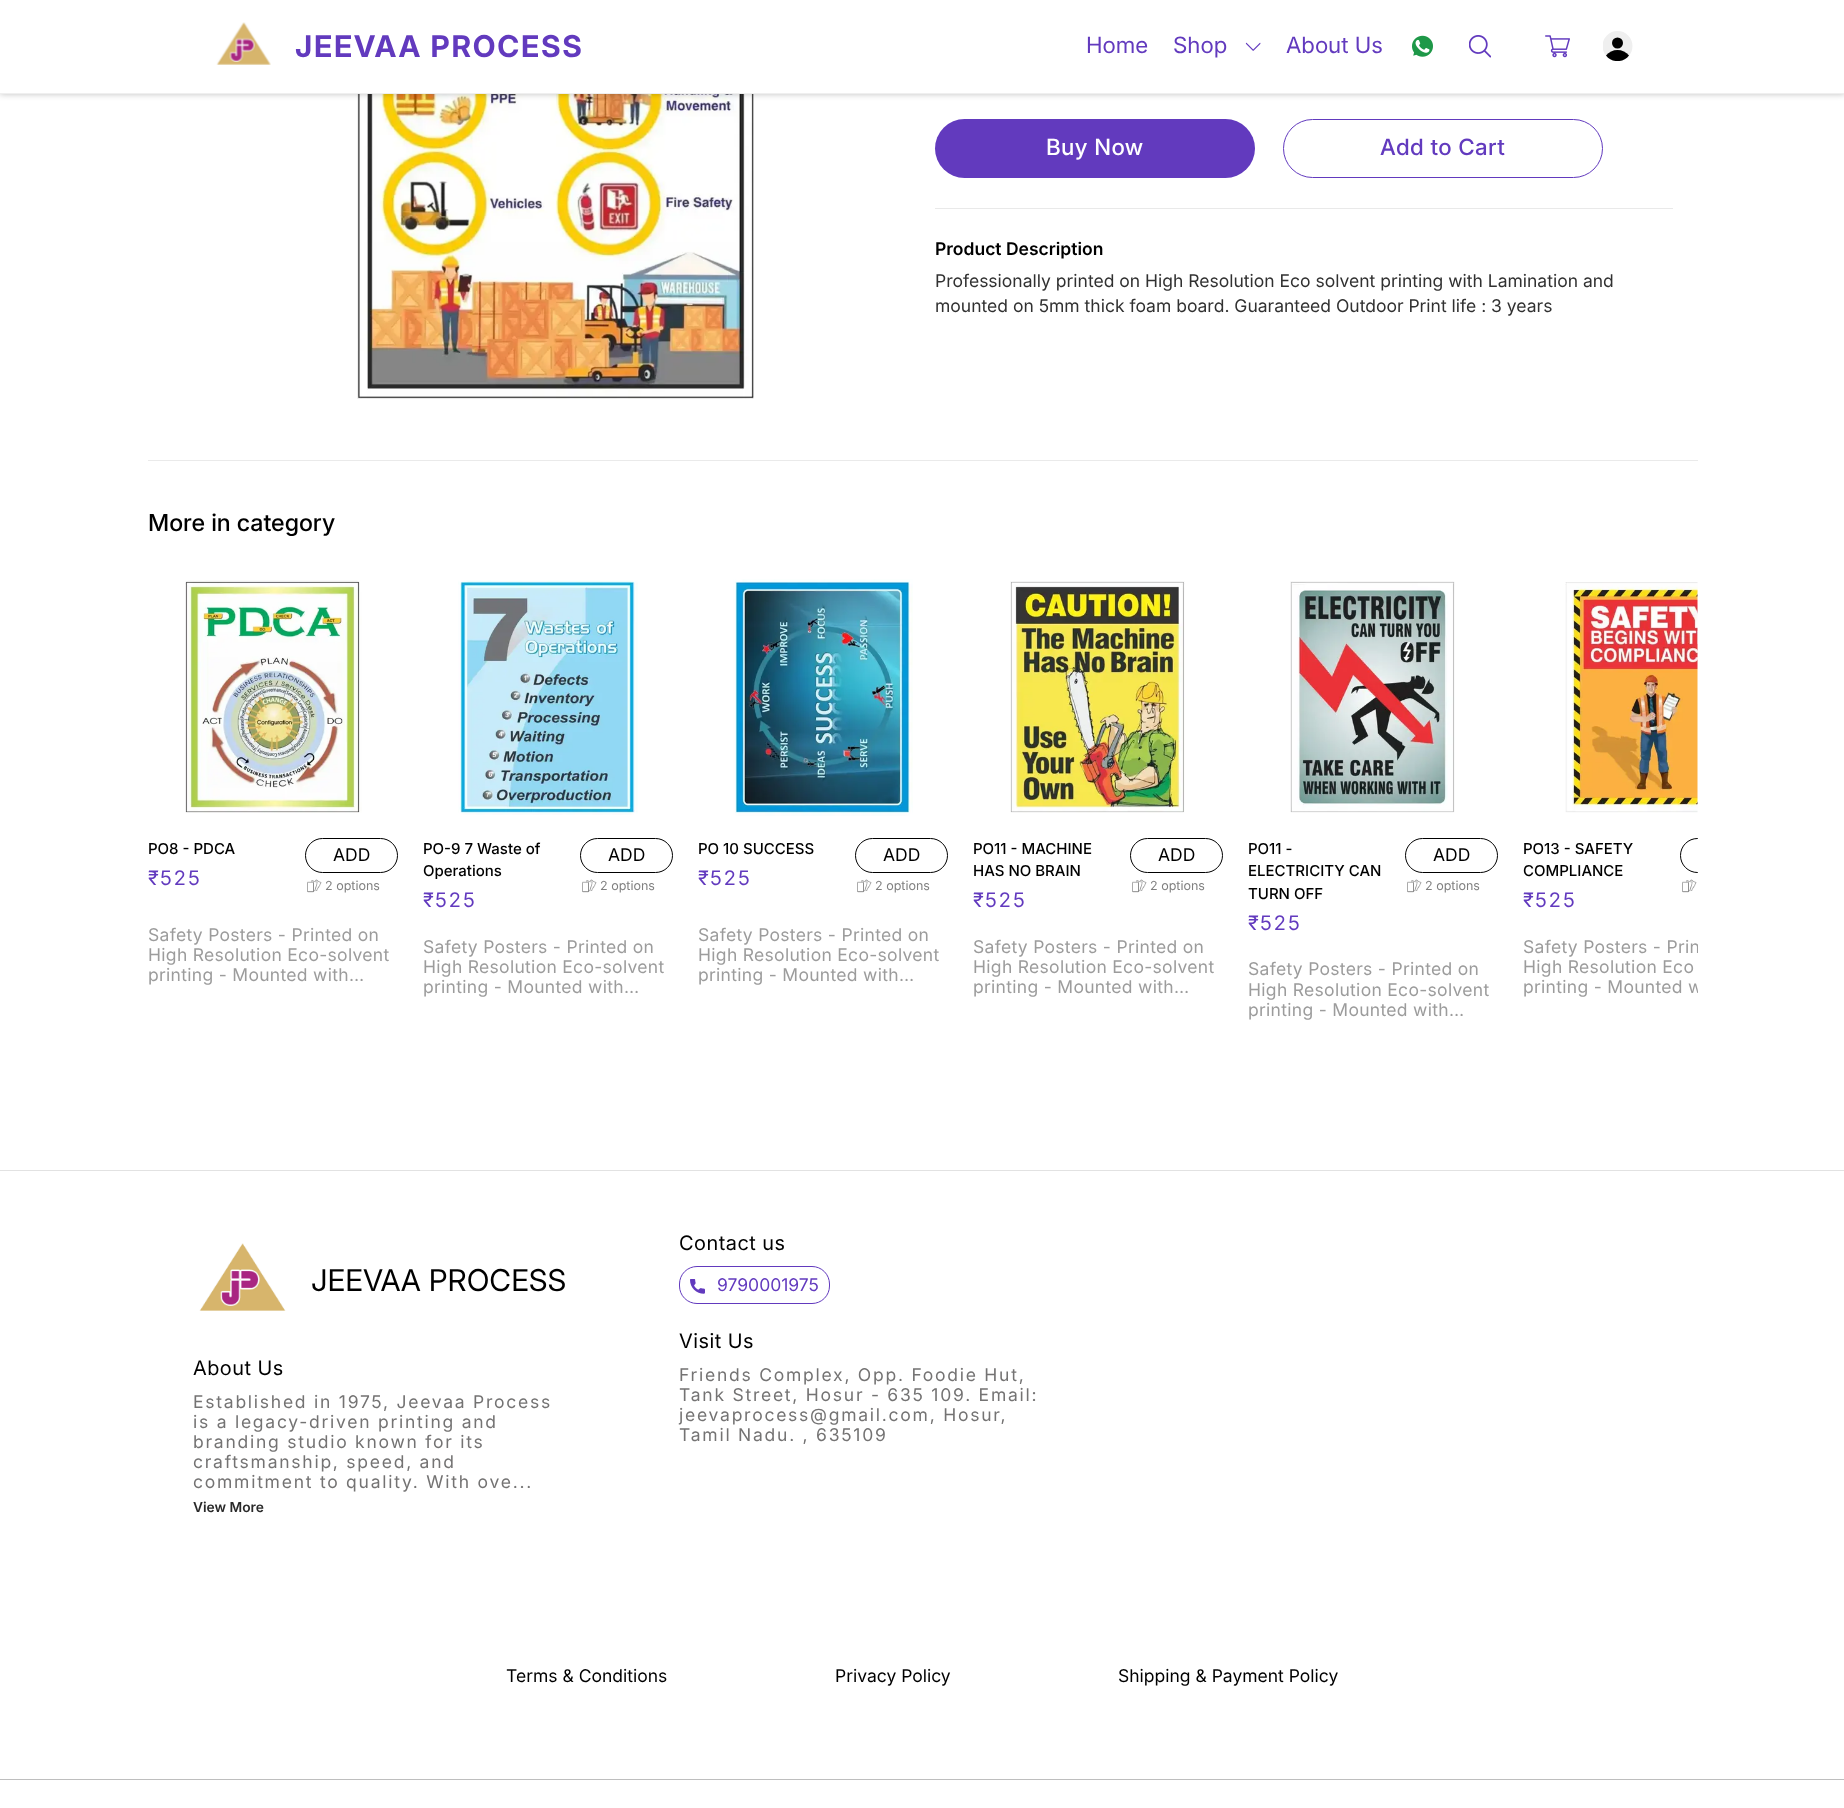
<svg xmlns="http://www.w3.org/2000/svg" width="1844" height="1808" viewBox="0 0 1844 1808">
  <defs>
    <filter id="blur1" x="-50%" y="-200%" width="200%" height="500%"><feGaussianBlur stdDeviation="3"/></filter>
    <clipPath id="clip1"><rect x="1603" y="31" width="30" height="30"/></clipPath>
    <clipPath id="clip2"><rect x="148" y="560" width="1550" height="510"/></clipPath>
    <clipPath id="clip3"><rect x="1523" y="936" width="175" height="62"/></clipPath>
  </defs>
  <rect width="100%" height="100%" fill="#ffffff"/>
  <image x="357" y="94" width="397" height="305" href="img6.png"/>
  <rect x="0" y="0" width="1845" height="94" fill="#000000" fill-opacity="0.25" filter="url(#blur1)"/>
  <rect x="0" y="0" width="1844" height="93" fill="#ffffff"/>
  <rect x="0" y="93" width="1844" height="1" fill="#efefef"/>
  <image x="216" y="22" width="55" height="43" href="img1.png"/>
  <text x="295" y="57" font-family="Inter" font-size="30" font-weight="bold" letter-spacing="1.75" fill="#623abe">JEEVAA PROCESS</text>
  <text x="1086" y="53" font-family="'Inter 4'" font-size="22.5" fill="#623abe">Home</text>
  <text x="1173" y="53" font-family="'Inter 4'" font-size="22.5" fill="#623abe">Shop</text>
  <image x="1245" y="42" width="16" height="9" href="img2.png"/>
  <text x="1286" y="53" font-family="'Inter 4'" font-size="22.5" fill="#623abe">About Us</text>
  <image x="1412" y="35" width="21" height="22" href="img3.png"/>
  <image x="1469" y="35" width="22" height="23" href="img4.png"/>
  <image x="1545" y="35" width="25" height="23" href="img5.png"/>
  <g clip-path="url(#clip1)">
    <circle cx="1617.5" cy="46" r="15" fill="#efefef"/>
  </g>
  <circle cx="1617.5" cy="43" r="5.5" fill="#000000"/>
  <g clip-path="url(#clip1)">
    <path d="M1629 55.5C1623.5 48 1611.5 48 1606 55.5C1611.5 63 1623.5 63 1629 55.5Z" fill="#000000"/>
  </g>
  <rect x="935" y="208" width="738" height="1" fill="#e9e9e9"/>
  <rect x="935" y="119" width="320" height="59" rx="29.5" fill="#623abe"/>
  <text x="1046" y="155" font-family="'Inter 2'" font-size="22.5" font-weight="500" letter-spacing="0.4" fill="#ffffff">Buy Now</text>
  <rect x="1283.5" y="119.5" width="319" height="58" rx="29" fill="none" stroke="#623abe"/>
  <text x="1380" y="155" font-family="'Inter 2'" font-size="22.5" font-weight="500" letter-spacing="0.4" fill="#623abe">Add to Cart</text>
  <text x="935" y="255" font-family="Inter" font-size="17.5" font-weight="600" fill="#000000">Product Description</text>
  <text x="935" y="287" font-family="'Inter 2'" font-size="17.5" fill="#313131">Professionally printed on High Resolution Eco solvent printing with Lamination and</text>
  <text x="935" y="312" font-family="'Inter 2'" font-size="17.5" fill="#313131">mounted on 5mm thick foam board. Guaranteed Outdoor Print life : 3 years</text>
  <rect x="148" y="460" width="1550" height="1" fill="#eaeaea"/>
  <text x="148" y="531" font-family="Inter" font-size="23.5" font-weight="500" fill="#000000">More in category</text>
  <image x="185" y="580" width="177" height="233" href="img7.png"/>
  <text x="148" y="854" font-family="'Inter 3'" font-size="15" font-weight="500" fill="#000000">PO8 - PDCA</text>
  <text x="148" y="885" font-family="'Inter 2'" font-size="20" letter-spacing="2" fill="#623abe">₹</text>
  <text x="160" y="885" font-family="Inter" font-size="20" letter-spacing="2" fill="#623abe">525</text>
  <rect x="305.5" y="838.5" width="92" height="34" rx="17" fill="none" stroke="#000000"/>
  <text x="333" y="861" font-family="'Inter 2'" font-size="17.5" fill="#000000">ADD</text>
  <image x="307" y="879" width="15" height="14" href="img8.png"/>
  <text x="325" y="890" font-family="'Inter 2'" font-size="12.5" fill="#808080">2 options</text>
  <text x="148" y="941" font-family="'Inter 2'" font-size="17.5" letter-spacing="0.3" fill="#9c9c9c">Safety Posters - Printed on</text>
  <text x="148" y="961" font-family="'Inter 2'" font-size="17.5" letter-spacing="0.3" fill="#9c9c9c">High Resolution Eco-solvent</text>
  <text x="148" y="981" font-family="'Inter 2'" font-size="17.5" letter-spacing="0.3" fill="#9c9c9c">printing - Mounted with…</text>
  <image x="458" y="580" width="180" height="235" href="img9.png"/>
  <text x="423" y="854" font-family="'Inter 3'" font-size="15" font-weight="500" fill="#000000">PO-9 7 Waste of</text>
  <text x="423" y="876" font-family="'Inter 3'" font-size="15" font-weight="500" fill="#000000">Operations</text>
  <text x="423" y="907" font-family="'Inter 2'" font-size="20" letter-spacing="2" fill="#623abe">₹</text>
  <text x="435" y="907" font-family="Inter" font-size="20" letter-spacing="2" fill="#623abe">525</text>
  <rect x="580.5" y="838.5" width="92" height="34" rx="17" fill="none" stroke="#000000"/>
  <text x="608" y="861" font-family="'Inter 2'" font-size="17.5" fill="#000000">ADD</text>
  <image x="582" y="879" width="15" height="14" href="img8.png"/>
  <text x="600" y="890" font-family="'Inter 2'" font-size="12.5" fill="#808080">2 options</text>
  <text x="423" y="953" font-family="'Inter 2'" font-size="17.5" letter-spacing="0.3" fill="#9c9c9c">Safety Posters - Printed on</text>
  <text x="423" y="973" font-family="'Inter 2'" font-size="17.5" letter-spacing="0.3" fill="#9c9c9c">High Resolution Eco-solvent</text>
  <text x="423" y="993" font-family="'Inter 2'" font-size="17.5" letter-spacing="0.3" fill="#9c9c9c">printing - Mounted with…</text>
  <image x="733" y="579" width="180" height="237" href="img10.png"/>
  <text x="698" y="854" font-family="'Inter 3'" font-size="15" font-weight="500" fill="#000000">PO 10 SUCCESS</text>
  <text x="698" y="885" font-family="'Inter 2'" font-size="20" letter-spacing="2" fill="#623abe">₹</text>
  <text x="710" y="885" font-family="Inter" font-size="20" letter-spacing="2" fill="#623abe">525</text>
  <rect x="855.5" y="838.5" width="92" height="34" rx="17" fill="none" stroke="#000000"/>
  <text x="883" y="861" font-family="'Inter 2'" font-size="17.5" fill="#000000">ADD</text>
  <image x="857" y="879" width="15" height="14" href="img8.png"/>
  <text x="875" y="890" font-family="'Inter 2'" font-size="12.5" fill="#808080">2 options</text>
  <text x="698" y="941" font-family="'Inter 2'" font-size="17.5" letter-spacing="0.3" fill="#9c9c9c">Safety Posters - Printed on</text>
  <text x="698" y="961" font-family="'Inter 2'" font-size="17.5" letter-spacing="0.3" fill="#9c9c9c">High Resolution Eco-solvent</text>
  <text x="698" y="981" font-family="'Inter 2'" font-size="17.5" letter-spacing="0.3" fill="#9c9c9c">printing - Mounted with…</text>
  <image x="1010" y="581" width="175" height="232" href="img11.png"/>
  <text x="973" y="854" font-family="'Inter 3'" font-size="15" font-weight="500" fill="#000000">PO11 - MACHINE</text>
  <text x="973" y="876" font-family="'Inter 3'" font-size="15" font-weight="500" fill="#000000">HAS NO BRAIN</text>
  <text x="973" y="907" font-family="'Inter 2'" font-size="20" letter-spacing="2" fill="#623abe">₹</text>
  <text x="985" y="907" font-family="Inter" font-size="20" letter-spacing="2" fill="#623abe">525</text>
  <rect x="1130.5" y="838.5" width="92" height="34" rx="17" fill="none" stroke="#000000"/>
  <text x="1158" y="861" font-family="'Inter 2'" font-size="17.5" fill="#000000">ADD</text>
  <image x="1132" y="879" width="15" height="14" href="img8.png"/>
  <text x="1150" y="890" font-family="'Inter 2'" font-size="12.5" fill="#808080">2 options</text>
  <text x="973" y="953" font-family="'Inter 2'" font-size="17.5" letter-spacing="0.3" fill="#9c9c9c">Safety Posters - Printed on</text>
  <text x="973" y="973" font-family="'Inter 2'" font-size="17.5" letter-spacing="0.3" fill="#9c9c9c">High Resolution Eco-solvent</text>
  <text x="973" y="993" font-family="'Inter 2'" font-size="17.5" letter-spacing="0.3" fill="#9c9c9c">printing - Mounted with…</text>
  <image x="1290" y="581" width="165" height="232" href="img12.png"/>
  <text x="1248" y="854" font-family="'Inter 3'" font-size="15" font-weight="500" fill="#000000">PO11 -</text>
  <text x="1248" y="876" font-family="'Inter 3'" font-size="15" font-weight="500" fill="#000000">ELECTRICITY CAN</text>
  <text x="1248" y="899" font-family="'Inter 3'" font-size="15" font-weight="500" fill="#000000">TURN OFF</text>
  <text x="1248" y="930" font-family="'Inter 2'" font-size="20" letter-spacing="2" fill="#623abe">₹</text>
  <text x="1260" y="930" font-family="Inter" font-size="20" letter-spacing="2" fill="#623abe">525</text>
  <rect x="1405.5" y="838.5" width="92" height="34" rx="17" fill="none" stroke="#000000"/>
  <text x="1433" y="861" font-family="'Inter 2'" font-size="17.5" fill="#000000">ADD</text>
  <image x="1407" y="879" width="15" height="14" href="img8.png"/>
  <text x="1425" y="890" font-family="'Inter 2'" font-size="12.5" fill="#808080">2 options</text>
  <text x="1248" y="975" font-family="'Inter 2'" font-size="17.5" letter-spacing="0.3" fill="#9c9c9c">Safety Posters - Printed on</text>
  <text x="1248" y="996" font-family="'Inter 2'" font-size="17.5" letter-spacing="0.3" fill="#9c9c9c">High Resolution Eco-solvent</text>
  <text x="1248" y="1016" font-family="'Inter 2'" font-size="17.5" letter-spacing="0.3" fill="#9c9c9c">printing - Mounted with…</text>
  <image x="1565" y="582" width="133" height="231" href="img13.png"/>
  <text x="1523" y="854" font-family="'Inter 3'" font-size="15" font-weight="500" fill="#000000">PO13 - SAFETY</text>
  <text x="1523" y="876" font-family="'Inter 3'" font-size="15" font-weight="500" fill="#000000">COMPLIANCE</text>
  <text x="1523" y="907" font-family="'Inter 2'" font-size="20" letter-spacing="2" fill="#623abe">₹</text>
  <text x="1535" y="907" font-family="Inter" font-size="20" letter-spacing="2" fill="#623abe">525</text>
  <g clip-path="url(#clip2)">
    <rect x="1680.5" y="838.5" width="92" height="34" rx="17" fill="none" stroke="#000000"/>
  </g>
  <image x="1682" y="879" width="15" height="14" href="img8.png"/>
  <g clip-path="url(#clip3)">
    <text x="1523" y="953" font-family="'Inter 2'" font-size="17.5" letter-spacing="0.3" fill="#9c9c9c">Safety Posters - Prin</text>
  </g>
  <text x="1523" y="973" font-family="'Inter 2'" font-size="17.5" letter-spacing="0.3" fill="#9c9c9c">High Resolution Eco</text>
  <g clip-path="url(#clip3)">
    <text x="1523" y="993" font-family="'Inter 2'" font-size="17.5" letter-spacing="0.3" fill="#9c9c9c">printing - Mounted w</text>
  </g>
  <rect x="0" y="1170" width="1844" height="1" fill="#e2e2e2"/>
  <image x="199" y="1243" width="87" height="68" href="img14.png"/>
  <text x="311" y="1291" font-family="'Inter 3'" font-size="30" fill="#000000">JEEVAA PROCESS</text>
  <text x="193" y="1375" font-family="Inter" font-size="20" letter-spacing="0.5" fill="#000000">About Us</text>
  <text x="193" y="1408" font-family="'Inter 2'" font-size="17.5" letter-spacing="1.75" fill="#747373">Established in 1975, Jeevaa Process</text>
  <text x="193" y="1428" font-family="'Inter 2'" font-size="17.5" letter-spacing="1.75" fill="#747373">is a legacy-driven printing and</text>
  <text x="193" y="1448" font-family="'Inter 2'" font-size="17.5" letter-spacing="1.75" fill="#747373">branding studio known for its</text>
  <text x="193" y="1468" font-family="'Inter 2'" font-size="17.5" letter-spacing="1.75" fill="#747373">craftsmanship, speed, and</text>
  <text x="193" y="1488" font-family="'Inter 2'" font-size="17.5" letter-spacing="1.75" fill="#747373">commitment to quality. With ove...</text>
  <text x="193" y="1512" font-family="Inter" font-size="13.75" font-weight="600" fill="#2a2a2a">View More</text>
  <text x="679" y="1250" font-family="Inter" font-size="20" letter-spacing="0.5" fill="#000000">Contact us</text>
  <rect x="679.5" y="1266.5" width="150" height="37" rx="17.5" fill="none" stroke="#623abe"/>
  <image x="690" y="1279" width="15" height="15" href="img15.png"/>
  <text x="717" y="1291" font-family="'Inter 2'" font-size="17.5" fill="#623abe">9790001975</text>
  <text x="679" y="1348" font-family="Inter" font-size="20" letter-spacing="0.5" fill="#000000">Visit Us</text>
  <text x="679" y="1381" font-family="'Inter 2'" font-size="17.5" letter-spacing="1.75" fill="#747373">Friends Complex, Opp. Foodie Hut,</text>
  <text x="679" y="1401" font-family="'Inter 2'" font-size="17.5" letter-spacing="1.75" fill="#747373">Tank Street, Hosur - 635 109. Email:</text>
  <text x="679" y="1421" font-family="'Inter 2'" font-size="17.5" letter-spacing="1.75" fill="#747373">jeevaprocess@gmail.com, Hosur,</text>
  <text x="679" y="1441" font-family="'Inter 2'" font-size="17.5" letter-spacing="1.75" fill="#747373">Tamil Nadu. , 635109</text>
  <text x="506" y="1682" font-family="'Inter 2'" font-size="17.5" fill="#000000">Terms &amp; Conditions</text>
  <text x="835" y="1682" font-family="'Inter 2'" font-size="17.5" fill="#000000">Privacy Policy</text>
  <text x="1118" y="1682" font-family="'Inter 2'" font-size="17.5" fill="#000000">Shipping &amp; Payment Policy</text>
  <rect x="0" y="1779" width="1844" height="1" fill="#bebebe"/>
</svg>
